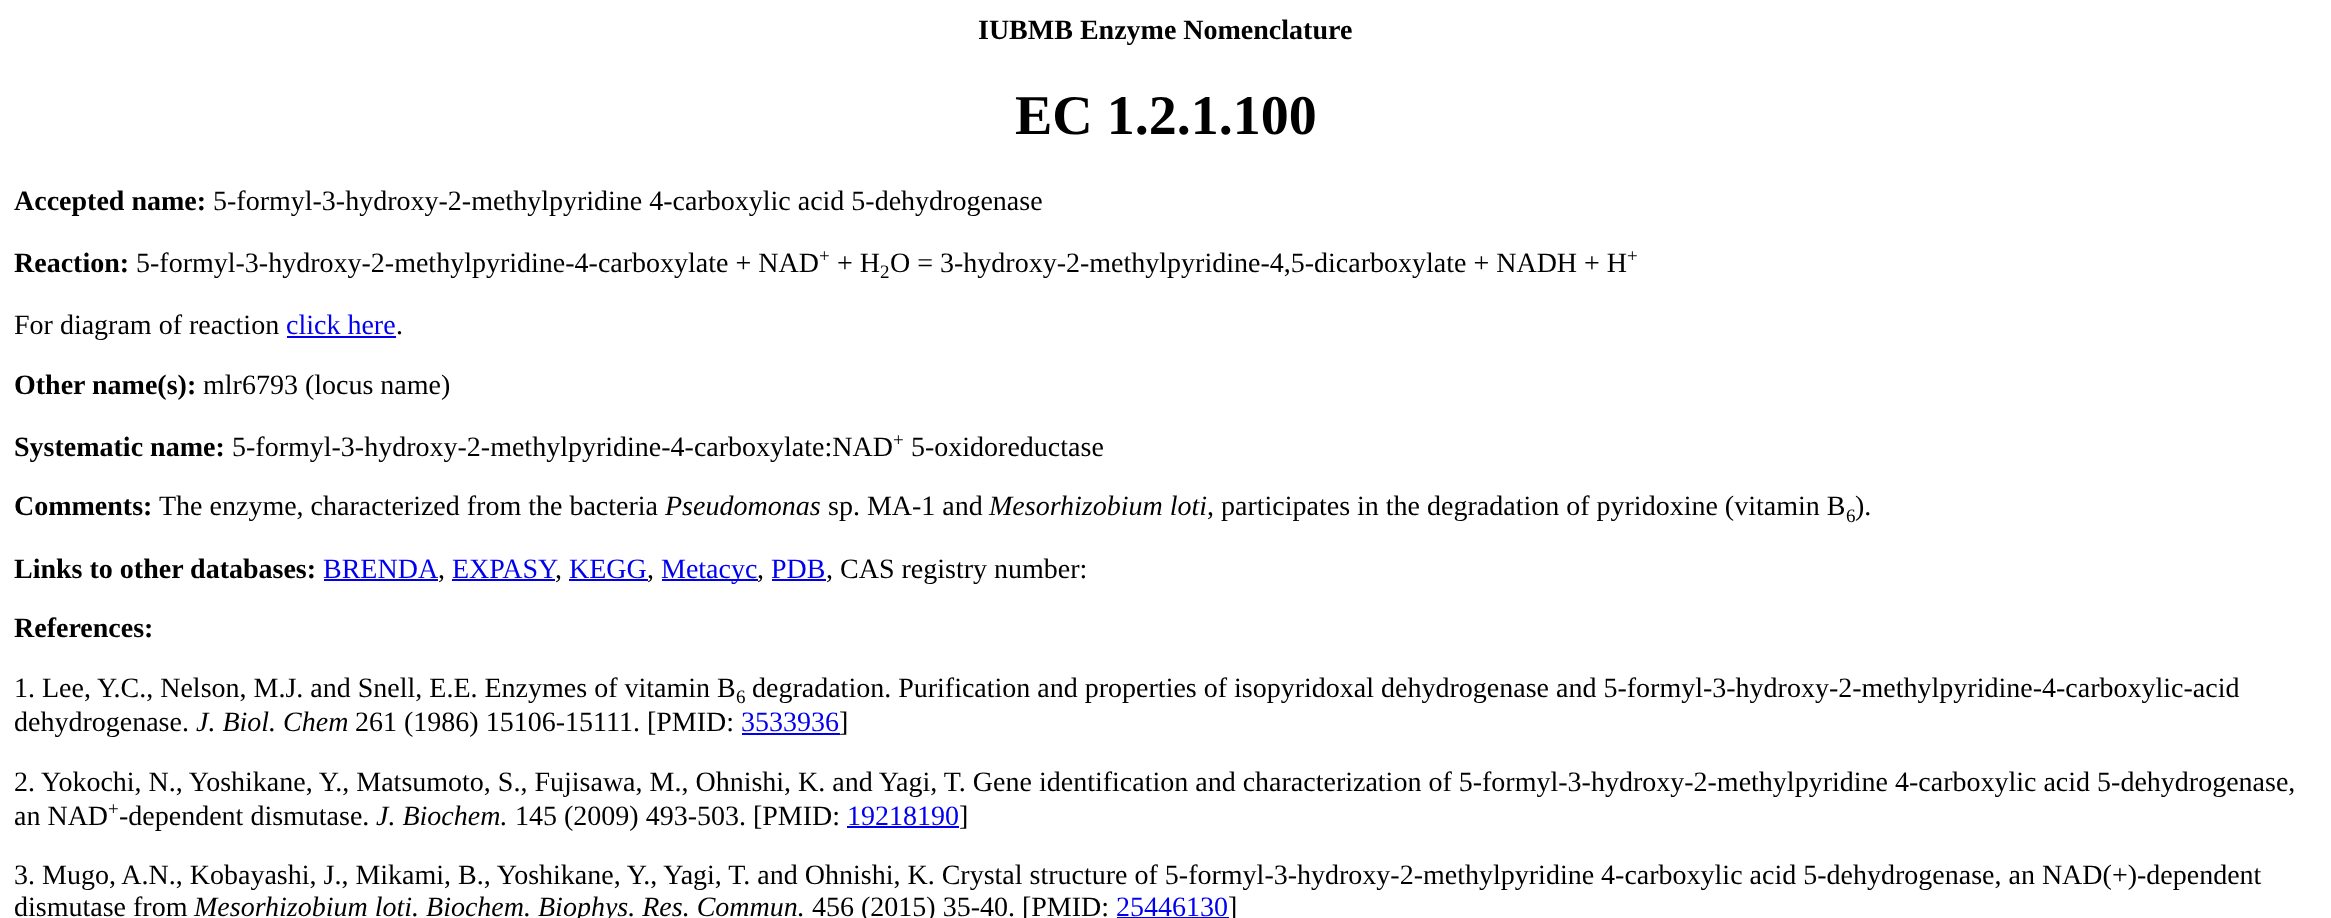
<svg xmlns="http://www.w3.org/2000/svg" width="2331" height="918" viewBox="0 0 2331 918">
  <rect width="100%" height="100%" fill="#ffffff"/>
  <text x="978" y="39" font-family="Liberation Serif" font-size="28" font-weight="bold" fill="#000000">IUBMB Enzyme Nomenclature</text>
  <text x="1015" y="134" font-family="Liberation Serif" font-size="56" font-weight="bold" fill="#000000">EC 1.2.1.100</text>
  <text x="14" y="210" font-family="Liberation Serif" font-size="28" font-weight="bold" fill="#000000">Accepted name:</text>
  <text x="213" y="210" font-family="Liberation Serif" font-size="28" fill="#000000">5-formyl-3-hydroxy-2-methylpyridine 4-carboxylic acid 5-dehydrogenase</text>
  <text x="14" y="272" font-family="Liberation Serif" font-size="28" font-weight="bold" fill="#000000">Reaction:</text>
  <text x="136" y="272" font-family="Liberation Serif" font-size="28" fill="#000000">5-formyl-3-hydroxy-2-methylpyridine-4-carboxylate + NAD</text>
  <text x="819" y="262" font-family="Liberation Serif" font-size="19" fill="#000000">+</text>
  <text x="837" y="272" font-family="Liberation Serif" font-size="28" fill="#000000">+ H</text>
  <text x="880" y="278" font-family="Liberation Serif" font-size="19" fill="#000000">2</text>
  <text x="890" y="272" font-family="Liberation Serif" font-size="28" fill="#000000">O = 3-hydroxy-2-methylpyridine-4,5-dicarboxylate + NADH + H</text>
  <text x="1627" y="262" font-family="Liberation Serif" font-size="19" fill="#000000">+</text>
  <text x="14" y="334" font-family="Liberation Serif" font-size="28" fill="#000000">For diagram of reaction</text>
  <text x="286" y="334" font-family="Liberation Serif" font-size="28" fill="#0000ee">click here</text>
  <rect x="287" y="336" width="109" height="2" fill="#0000ee"/>
  <text x="396" y="334" font-family="Liberation Serif" font-size="28" fill="#000000">.</text>
  <text x="14" y="394" font-family="Liberation Serif" font-size="28" font-weight="bold" fill="#000000">Other name(s):</text>
  <text x="203" y="394" font-family="Liberation Serif" font-size="28" fill="#000000">mlr6793 (locus name)</text>
  <text x="14" y="456" font-family="Liberation Serif" font-size="28" font-weight="bold" fill="#000000">Systematic name:</text>
  <text x="232" y="456" font-family="Liberation Serif" font-size="28" fill="#000000">5-formyl-3-hydroxy-2-methylpyridine-4-carboxylate:NAD</text>
  <text x="893" y="446" font-family="Liberation Serif" font-size="19" fill="#000000">+</text>
  <text x="911" y="456" font-family="Liberation Serif" font-size="28" fill="#000000">5-oxidoreductase</text>
  <text x="14" y="515" font-family="Liberation Serif" font-size="28" font-weight="bold" fill="#000000">Comments:</text>
  <text x="159" y="515" font-family="Liberation Serif" font-size="28" fill="#000000">The enzyme, characterized from the bacteria</text>
  <text x="665" y="515" font-family="Liberation Serif" font-size="28" font-style="italic" fill="#000000">Pseudomonas</text>
  <text x="828" y="515" font-family="Liberation Serif" font-size="28" fill="#000000">sp. MA-1 and</text>
  <text x="989" y="515" font-family="Liberation Serif" font-size="28" font-style="italic" fill="#000000">Mesorhizobium loti</text>
  <text x="1207" y="515" font-family="Liberation Serif" font-size="28" fill="#000000">, participates in the degradation of pyridoxine (vitamin B</text>
  <text x="1846" y="522" font-family="Liberation Serif" font-size="19" fill="#000000">6</text>
  <text x="1855" y="515" font-family="Liberation Serif" font-size="28" fill="#000000">).</text>
  <text x="14" y="578" font-family="Liberation Serif" font-size="28" font-weight="bold" fill="#000000">Links to other databases:</text>
  <text x="323" y="578" font-family="Liberation Serif" font-size="28" fill="#0000ee">BRENDA</text>
  <rect x="324" y="579" width="114" height="2" fill="#0000ee"/>
  <text x="438" y="578" font-family="Liberation Serif" font-size="28" fill="#000000">,</text>
  <text x="452" y="578" font-family="Liberation Serif" font-size="28" fill="#0000ee">EXPASY</text>
  <rect x="452" y="579" width="103" height="2" fill="#0000ee"/>
  <text x="555" y="578" font-family="Liberation Serif" font-size="28" fill="#000000">,</text>
  <text x="569" y="578" font-family="Liberation Serif" font-size="28" fill="#0000ee">KEGG</text>
  <rect x="569" y="579" width="79" height="2" fill="#0000ee"/>
  <text x="647" y="578" font-family="Liberation Serif" font-size="28" fill="#000000">,</text>
  <rect x="662" y="579" width="96" height="2" fill="#0000ee"/>
  <text x="661" y="578" font-family="Liberation Serif" font-size="28" fill="#0000ee">Metacyc</text>
  <text x="757" y="578" font-family="Liberation Serif" font-size="28" fill="#000000">,</text>
  <text x="771" y="578" font-family="Liberation Serif" font-size="28" fill="#0000ee">PDB</text>
  <rect x="772" y="579" width="54" height="2" fill="#0000ee"/>
  <text x="826" y="578" font-family="Liberation Serif" font-size="28" fill="#000000">, CAS registry number:</text>
  <text x="14" y="637" font-family="Liberation Serif" font-size="28" font-weight="bold" fill="#000000">References:</text>
  <text x="14" y="697" font-family="Liberation Serif" font-size="28" fill="#000000">1. Lee, Y.C., Nelson, M.J. and Snell, E.E. Enzymes of vitamin B</text>
  <text x="736" y="703" font-family="Liberation Serif" font-size="19" fill="#000000">6</text>
  <text x="752" y="697" font-family="Liberation Serif" font-size="28" fill="#000000">degradation. Purification and properties of isopyridoxal dehydrogenase and 5-formyl-3-hydroxy-2-methylpyridine-4-carboxylic-acid</text>
  <text x="14" y="731" font-family="Liberation Serif" font-size="28" fill="#000000">dehydrogenase.</text>
  <text x="196" y="731" font-family="Liberation Serif" font-size="28" font-style="italic" fill="#000000">J. Biol. Chem</text>
  <text x="355" y="731" font-family="Liberation Serif" font-size="28" fill="#000000">261 (1986) 15106-15111. [PMID:</text>
  <text x="741" y="731" font-family="Liberation Serif" font-size="28" fill="#0000ee">3533936</text>
  <rect x="742" y="733" width="98" height="2" fill="#0000ee"/>
  <text x="839" y="731" font-family="Liberation Serif" font-size="28" fill="#000000">]</text>
  <text x="14" y="791" font-family="Liberation Serif" font-size="28" fill="#000000">2. Yokochi, N., Yoshikane, Y., Matsumoto, S., Fujisawa, M., Ohnishi, K. and Yagi, T. Gene identification and characterization of 5-formyl-3-hydroxy-2-methylpyridine 4-carboxylic acid 5-dehydrogenase,</text>
  <text x="14" y="825" font-family="Liberation Serif" font-size="28" fill="#000000">an NAD</text>
  <text x="108" y="815" font-family="Liberation Serif" font-size="19" fill="#000000">+</text>
  <text x="119" y="825" font-family="Liberation Serif" font-size="28" fill="#000000">-dependent dismutase.</text>
  <text x="376" y="825" font-family="Liberation Serif" font-size="28" font-style="italic" fill="#000000">J. Biochem.</text>
  <text x="515" y="825" font-family="Liberation Serif" font-size="28" fill="#000000">145 (2009) 493-503. [PMID:</text>
  <text x="847" y="825" font-family="Liberation Serif" font-size="28" fill="#0000ee">19218190</text>
  <rect x="847" y="826" width="112" height="2" fill="#0000ee"/>
  <text x="959" y="825" font-family="Liberation Serif" font-size="28" fill="#000000">]</text>
  <text x="14" y="884" font-family="Liberation Serif" font-size="28" fill="#000000">3. Mugo, A.N., Kobayashi, J., Mikami, B., Yoshikane, Y., Yagi, T. and Ohnishi, K. Crystal structure of 5-formyl-3-hydroxy-2-methylpyridine 4-carboxylic acid 5-dehydrogenase, an NAD(+)-dependent</text>
  <text x="14" y="916" font-family="Liberation Serif" font-size="28" fill="#000000">dismutase from</text>
  <text x="194" y="916" font-family="Liberation Serif" font-size="28" font-style="italic" fill="#000000">Mesorhizobium loti. Biochem. Biophys. Res. Commun.</text>
  <text x="812" y="916" font-family="Liberation Serif" font-size="28" fill="#000000">456 (2015) 35-40. [PMID:</text>
  <text x="1116" y="916" font-family="Liberation Serif" font-size="28" fill="#0000ee">25446130</text>
  <rect x="1117" y="917" width="112" height="1" fill="#0000ee"/>
  <text x="1228" y="916" font-family="Liberation Serif" font-size="28" fill="#000000">]</text>
</svg>
